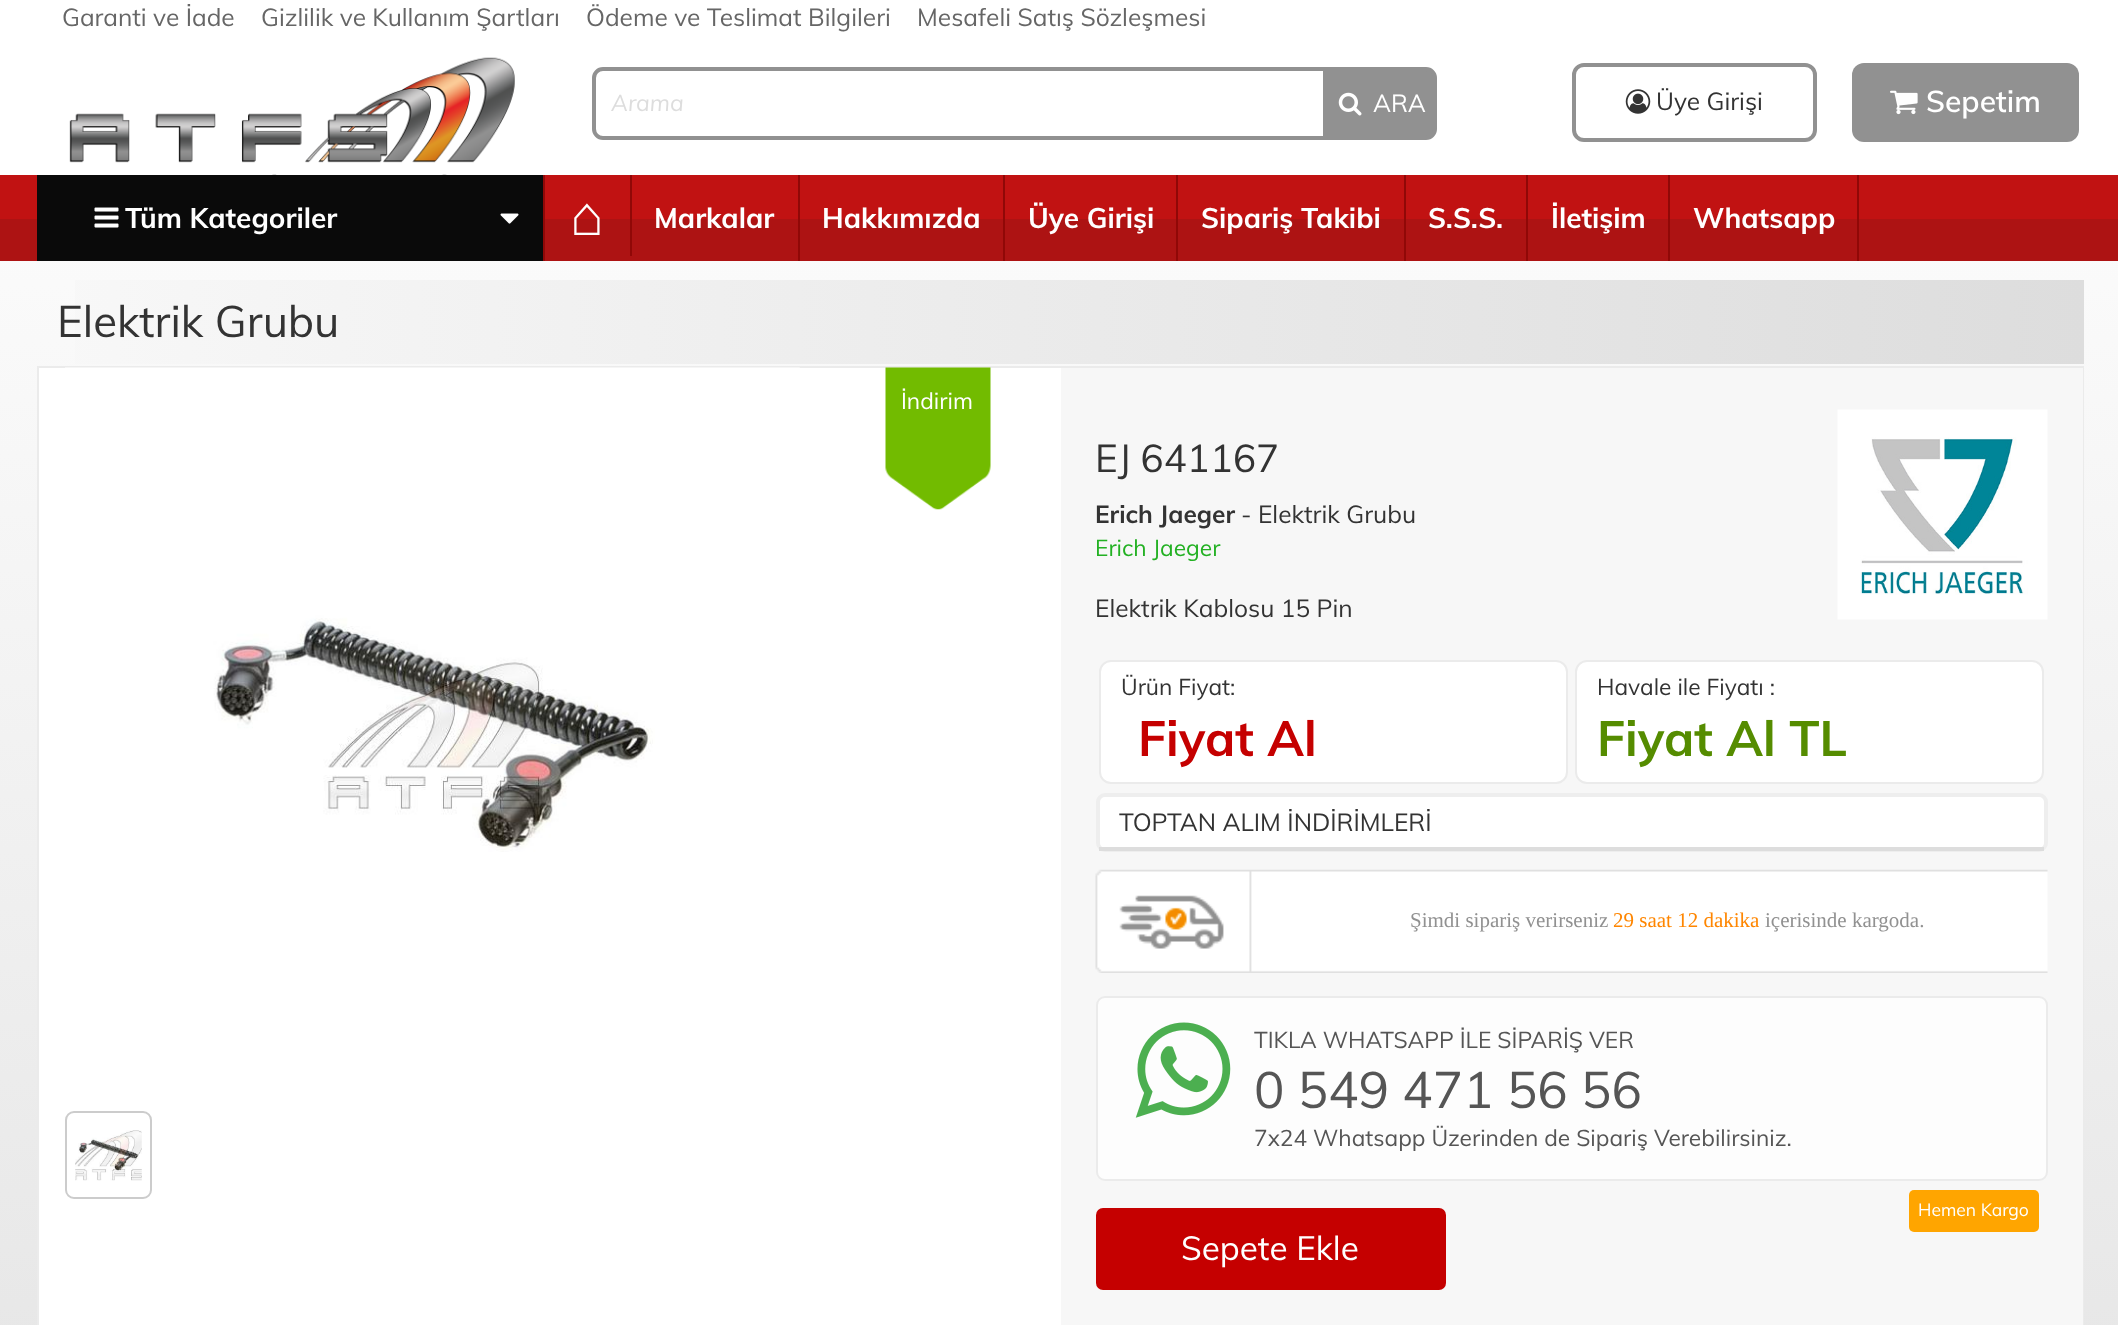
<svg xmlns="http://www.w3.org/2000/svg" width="2118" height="1325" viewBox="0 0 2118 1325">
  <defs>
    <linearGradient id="g1" gradientUnits="userSpaceOnUse" x1="1060" y1="0" x2="1060" y2="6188"><stop offset="0" stop-color="#ffffff"/><stop offset="0.33" stop-color="#dbdbdb"/><stop offset="0.67" stop-color="#f2f2f2"/><stop offset="1" stop-color="#ececec"/></linearGradient>
    <linearGradient id="g2" gradientUnits="userSpaceOnUse" x1="37" y1="322" x2="2084" y2="322"><stop offset="0" stop-color="#f8f8f8"/><stop offset="1" stop-color="#dddddd"/></linearGradient>
  </defs>
  <rect width="100%" height="100%" fill="#ffffff"/>
  <rect x="0" y="142" width="2118" height="1183" fill="url(#g1)"/>
  <text x="62" y="26" font-family="Muli" font-size="24.5" fill="#666666">Garanti ve İade</text>
  <text x="261" y="26" font-family="Muli" font-size="24.5" fill="#666666">Gizlilik ve Kullanım Şartları</text>
  <text x="586" y="26" font-family="Muli" font-size="24.5" fill="#666666">Ödeme ve Teslimat Bilgileri</text>
  <text x="917" y="26" font-family="Muli" font-size="24.5" fill="#666666">Mesafeli Satış Sözleşmesi</text>
  <rect x="0" y="142" width="2118" height="33" fill="#ffffff"/>
  <image x="69" y="57" width="446" height="118" href="img1.png"/>
  <rect x="594" y="69" width="773" height="69" rx="9" fill="none" stroke="#919191" stroke-width="4"/>
  <text x="611" y="111" font-family="Muli" font-size="23" font-style="italic" fill="#dddddd">Arama</text>
  <path d="M1325 69H1426C1431 69 1435 73 1435 78V129C1435 134 1431 138 1426 138H1325Z" fill="#919191" stroke="#919191" stroke-width="4"/>
  <image x="1338" y="92" width="24" height="24" href="img2.png"/>
  <text x="1373" y="112" font-family="Muli" font-size="24.5" fill="#ffffff">ARA</text>
  <rect x="1574" y="65" width="241" height="75" rx="10" fill="none" stroke="#919191" stroke-width="4"/>
  <image x="1625" y="89" width="26" height="25" href="img3.png"/>
  <text x="1656" y="110" font-family="Muli" font-size="24.5" fill="#333333">Üye Girişi</text>
  <rect x="1852" y="63" width="227" height="79" rx="12" fill="#919191"/>
  <image x="1890" y="90" width="28" height="25" href="img4.png"/>
  <text x="1926" y="112" font-family="Muli" font-size="30" font-weight="600" fill="#ffffff">Sepetim</text>
  <rect x="0" y="175" width="2118" height="44" fill="#c11212"/>
  <rect x="0" y="219" width="2118" height="42" fill="#ad1313"/>
  <rect x="37" y="175" width="506" height="86" fill="#0a0a0a"/>
  <rect x="543" y="175" width="2" height="86" fill="#900807"/>
  <image x="94" y="207" width="25" height="21" href="img5.png"/>
  <text x="125" y="228" font-family="Muli" font-size="28" font-weight="bold" fill="#ffffff">Tüm Kategoriler</text>
  <image x="500" y="213" width="19" height="11" href="img6.png"/>
  <rect x="630" y="175" width="2" height="81" fill="#900807"/>
  <text x="570" y="235" font-family="Liberation Sans" font-size="56" font-weight="bold" fill="#ffffff">⌂</text>
  <rect x="798" y="175" width="2" height="86" fill="#900807"/>
  <text x="654" y="228" font-family="Muli" font-size="28" font-weight="bold" fill="#ffffff">Markalar</text>
  <rect x="1003" y="175" width="2" height="86" fill="#900807"/>
  <text x="822" y="228" font-family="Muli" font-size="28" font-weight="bold" fill="#ffffff">Hakkımızda</text>
  <rect x="1176" y="175" width="2" height="86" fill="#900807"/>
  <text x="1028" y="228" font-family="Muli" font-size="28" font-weight="bold" fill="#ffffff">Üye Girişi</text>
  <rect x="1404" y="175" width="2" height="86" fill="#900807"/>
  <text x="1201" y="228" font-family="Muli" font-size="28" font-weight="bold" fill="#ffffff">Sipariş Takibi</text>
  <rect x="1526" y="175" width="2" height="86" fill="#900807"/>
  <text x="1428" y="228" font-family="Muli" font-size="28" font-weight="bold" fill="#ffffff">S.S.S.</text>
  <rect x="1668" y="175" width="2" height="86" fill="#900807"/>
  <text x="1551" y="228" font-family="Muli" font-size="28" font-weight="bold" fill="#ffffff">İletişim</text>
  <rect x="1857" y="175" width="2" height="86" fill="#900807"/>
  <text x="1693" y="228" font-family="Muli" font-size="28" font-weight="bold" fill="#ffffff">Whatsapp</text>
  <rect x="75" y="280" width="2009" height="84" fill="url(#g2)"/>
  <text x="57" y="337" font-family="Muli" font-size="43.75" fill="#333333">Elektrik Grubu</text>
  <rect x="39" y="368" width="1022" height="957" fill="#ffffff"/>
  <rect x="38" y="367" width="2045" height="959" fill="none" stroke="#ebebeb" stroke-width="2"/>
  <image x="65" y="367" width="735" height="485" href="img7.png"/>
  <image x="885" y="367" width="106" height="143" href="img8.png"/>
  <text x="901" y="409" font-family="Muli" font-size="22.75" fill="#ffffff">İndirim</text>
  <rect x="66" y="1112" width="85" height="86" rx="8" fill="none" stroke="#cccccc" stroke-width="2"/>
  <image x="75" y="1130" width="67" height="51" href="img9.png"/>
  <rect x="1061" y="368" width="1022" height="957" fill="#f7f7f7"/>
  <text x="1095" y="472" font-family="Muli" font-size="38.5" fill="#333333">EJ 641167</text>
  <text x="1095" y="523" font-family="Muli" font-size="24.5" font-weight="bold" fill="#333333">Erich Jaeger</text>
  <text x="1241" y="523" font-family="Muli" font-size="24.5" fill="#333333">- Elektrik Grubu</text>
  <image x="1837" y="409" width="211" height="211" href="img10.png"/>
  <text x="1095" y="556" font-family="Muli" font-size="22.75" fill="#23b123">Erich Jaeger</text>
  <text x="1095" y="617" font-family="Muli" font-size="24.5" fill="#333333">Elektrik Kablosu 15 Pin</text>
  <rect x="1100" y="661" width="467" height="122" rx="11" fill="#ffffff" stroke="#ebebeb" stroke-width="2"/>
  <text x="1121" y="695" font-family="Muli" font-size="22.75" fill="#333333">Ürün Fiyat:</text>
  <text x="1138" y="756" font-family="Muli" font-size="49" font-weight="bold" fill="#c50000">Fiyat Al</text>
  <rect x="1576" y="661" width="467" height="122" rx="11" fill="#ffffff" stroke="#ebebeb" stroke-width="2"/>
  <text x="1597" y="695" font-family="Muli" font-size="22.75" fill="#333333">Havale ile Fiyatı :</text>
  <text x="1597" y="756" font-family="Muli" font-size="49" font-weight="bold" fill="#558c00">Fiyat Al TL</text>
  <rect x="1098" y="795" width="948" height="55" rx="7" fill="#ffffff" stroke="#eeeeee" stroke-width="4"/>
  <text x="1119" y="831" font-family="Muli" font-size="24.5" fill="#333333">TOPTAN ALIM İNDİRİMLERİ</text>
  <rect x="1099" y="847" width="945" height="4" fill="#dddddd"/>
  <image x="1095" y="869" width="953" height="104" href="img11.png"/>
  <text x="1410" y="927" font-family="Liberation Serif" font-size="21" fill="#919191">Şimdi sipariş verirseniz</text>
  <text x="1613" y="927" font-family="Liberation Serif" font-size="21" fill="#ff8600">29 saat 12 dakika</text>
  <text x="1765" y="927" font-family="Liberation Serif" font-size="21" fill="#919191">içerisinde kargoda.</text>
  <rect x="1097" y="997" width="950" height="183" rx="8" fill="#fdfdfd" stroke="#ebebeb" stroke-width="2"/>
  <image x="1135" y="1022" width="96" height="96" href="img12.png"/>
  <text x="1254" y="1048" font-family="Muli" font-size="22.75" fill="#555555">TIKLA WHATSAPP İLE SİPARİŞ VER</text>
  <text x="1254" y="1108" font-family="Muli" font-size="50.75" fill="#555555">0 549 471 56 56</text>
  <text x="1254" y="1146" font-family="Muli" font-size="22.75" fill="#555555">7x24 Whatsapp Üzerinden de Sipariş Verebilirsiniz.</text>
  <rect x="1909" y="1190" width="130" height="42" rx="5" fill="#ffa500"/>
  <text x="1918" y="1216" font-family="Muli" font-size="17.5" fill="#ffffff">Hemen Kargo</text>
  <rect x="1096" y="1208" width="350" height="82" rx="7" fill="#c50000"/>
  <text x="1181" y="1260" font-family="Muli" font-size="33.25" fill="#ffffff">Sepete Ekle</text>
</svg>
